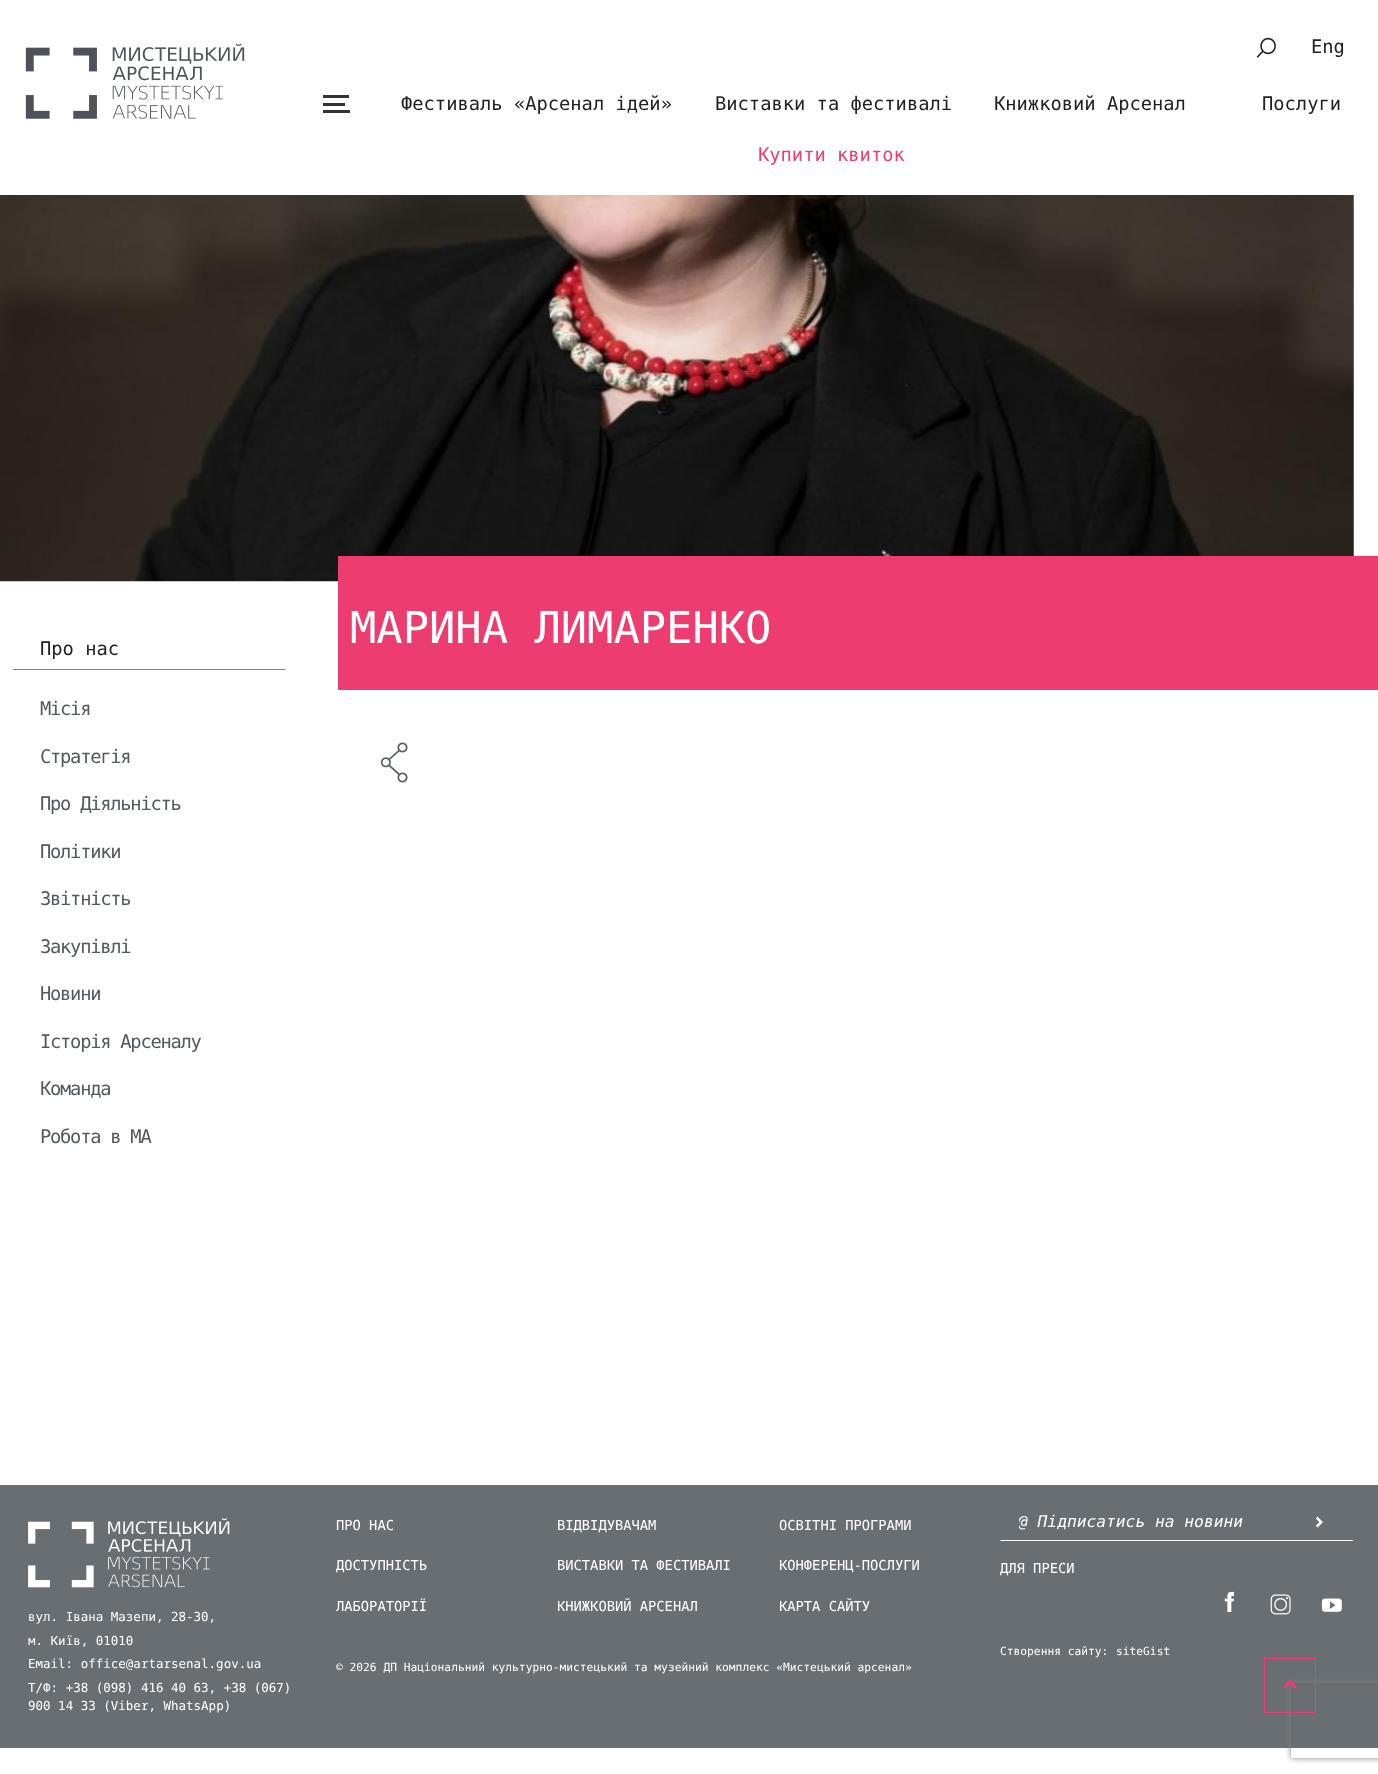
<svg xmlns="http://www.w3.org/2000/svg" width="1378" height="1774" viewBox="0 0 1378 1774">
  <defs>
    <clipPath id="clip1"><rect x="1019" y="1511" width="269" height="23"/></clipPath>
    <clipPath id="clip2"><path d="M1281 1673H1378V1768H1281ZM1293.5 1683H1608.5C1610 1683 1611 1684 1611 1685.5V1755.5C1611 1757 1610 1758 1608.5 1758H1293.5C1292 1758 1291 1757 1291 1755.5V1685.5C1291 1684 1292 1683 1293.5 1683Z" clip-rule="evenodd"/></clipPath>
    <filter id="blur1" x="-50%" y="-200%" width="200%" height="500%"><feGaussianBlur stdDeviation="3"/></filter>
  </defs>
  <rect width="100%" height="100%" fill="#ffffff"/>
  <image x="25" y="43" width="220" height="76" href="img1.png"/>
  <image x="1256" y="37" width="20" height="21" href="img2.png"/>
  <text x="1311" y="53" font-family="'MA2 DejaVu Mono'" font-size="18.75" fill="#212123">Eng</text>
  <rect x="323" y="95" width="26" height="3" fill="#333333"/>
  <rect x="323" y="103" width="22" height="3" fill="#333333"/>
  <rect x="323" y="110" width="27" height="3" fill="#333333"/>
  <text x="401" y="110" font-family="'MA2 DejaVu Mono'" font-size="18.75" fill="#212123">Фестиваль «Арсенал ідей»</text>
  <text x="715" y="110" font-family="'MA2 DejaVu Mono'" font-size="18.75" fill="#212123">Виставки та фестивалі</text>
  <text x="994" y="110" font-family="'MA2 DejaVu Mono'" font-size="18.75" fill="#212123">Книжковий Арсенал</text>
  <text x="1262" y="110" font-family="'MA2 DejaVu Mono'" font-size="18.75" fill="#212123">Послуги</text>
  <text x="758" y="161" font-family="'MA2 DejaVu Mono'" font-size="18.75" fill="#ef3c70">Купити квиток</text>
  <image x="0" y="195" width="1354" height="387" href="img3.png"/>
  <rect x="338" y="556" width="1040" height="134" fill="#ec3c70"/>
  <text x="350" y="643" font-family="'MA2 DejaVu Mono'" font-size="43.75" fill="#ffffff">МАРИНА ЛИМАРЕНКО</text>
  <image x="380" y="742" width="28" height="41" href="img4.png"/>
  <text x="40" y="655" font-family="'MA2 DejaVu Mono'" font-size="18.75" fill="#212123">Про нас</text>
  <rect x="13" y="669" width="272" height="1" fill="#7a7d7f"/>
  <text x="40" y="715" font-family="'MA2 DejaVu Mono'" font-size="18.75" letter-spacing="-1.25" fill="#54595d">Місія</text>
  <text x="40" y="763" font-family="'MA2 DejaVu Mono'" font-size="18.75" letter-spacing="-1.25" fill="#54595d">Стратегія</text>
  <text x="40" y="810" font-family="'MA2 DejaVu Mono'" font-size="18.75" letter-spacing="-1.25" fill="#54595d">Про Діяльність</text>
  <text x="40" y="858" font-family="'MA2 DejaVu Mono'" font-size="18.75" letter-spacing="-1.25" fill="#54595d">Політики</text>
  <text x="40" y="905" font-family="'MA2 DejaVu Mono'" font-size="18.75" letter-spacing="-1.25" fill="#54595d">Звітність</text>
  <text x="40" y="953" font-family="'MA2 DejaVu Mono'" font-size="18.75" letter-spacing="-1.25" fill="#54595d">Закупівлі</text>
  <text x="40" y="1000" font-family="'MA2 DejaVu Mono'" font-size="18.75" letter-spacing="-1.25" fill="#54595d">Новини</text>
  <text x="40" y="1048" font-family="'MA2 DejaVu Mono'" font-size="18.75" letter-spacing="-1.25" fill="#54595d">Історія Арсеналу</text>
  <text x="40" y="1095" font-family="'MA2 DejaVu Mono'" font-size="18.75" letter-spacing="-1.25" fill="#54595d">Команда</text>
  <text x="40" y="1143" font-family="'MA2 DejaVu Mono'" font-size="18.75" letter-spacing="-1.25" fill="#54595d">Робота в МА</text>
  <rect x="0" y="1485" width="1378" height="263" fill="#696e72"/>
  <image x="28" y="1518" width="202" height="70" href="img5.png"/>
  <text x="28" y="1621" font-family="'MA2 DejaVu Mono'" font-size="12.5" fill="#ffffff">вул. Івана Мазепи, 28-30,</text>
  <text x="28" y="1645" font-family="'MA2 DejaVu Mono'" font-size="12.5" fill="#ffffff">м. Київ, 01010</text>
  <text x="28" y="1668" font-family="'MA2 DejaVu Mono'" font-size="12.5" fill="#ffffff">Email: office@artarsenal.gov.ua</text>
  <text x="28" y="1692" font-family="'MA2 DejaVu Mono'" font-size="12.5" fill="#ffffff">Т/Ф: +38 (098) 416 40 63, +38 (067)</text>
  <text x="28" y="1710" font-family="'MA2 DejaVu Mono'" font-size="12.5" fill="#ffffff">900 14 33 (Viber, WhatsApp)</text>
  <text x="336" y="1530" font-family="'MA2 DejaVu Mono'" font-size="13.75" fill="#ffffff">ПРО НАС</text>
  <text x="557" y="1530" font-family="'MA2 DejaVu Mono'" font-size="13.75" fill="#ffffff">ВІДВІДУВАЧАМ</text>
  <text x="779" y="1530" font-family="'MA2 DejaVu Mono'" font-size="13.75" fill="#ffffff">ОСВІТНІ ПРОГРАМИ</text>
  <text x="336" y="1570" font-family="'MA2 DejaVu Mono'" font-size="13.75" fill="#ffffff">ДОСТУПНІСТЬ</text>
  <text x="557" y="1570" font-family="'MA2 DejaVu Mono'" font-size="13.75" fill="#ffffff">ВИСТАВКИ ТА ФЕСТИВАЛІ</text>
  <text x="779" y="1570" font-family="'MA2 DejaVu Mono'" font-size="13.75" fill="#ffffff">КОНФЕРЕНЦ-ПОСЛУГИ</text>
  <text x="336" y="1611" font-family="'MA2 DejaVu Mono'" font-size="13.75" fill="#ffffff">ЛАБОРАТОРІЇ</text>
  <text x="557" y="1611" font-family="'MA2 DejaVu Mono'" font-size="13.75" fill="#ffffff">КНИЖКОВИЙ АРСЕНАЛ</text>
  <text x="779" y="1611" font-family="'MA2 DejaVu Mono'" font-size="13.75" fill="#ffffff">КАРТА САЙТУ</text>
  <text x="336" y="1671" font-family="'MA2 DejaVu Mono'" font-size="11.25" fill="#ffffff">© 2026 ДП Національний культурно-мистецький та музейний комплекс «Мистецький арсенал»</text>
  <path d="M1354 1541H1000L1001 1540H1352Z" fill="#ffffff"/>
  <g clip-path="url(#clip1)">
    <text x="1018" y="1527" font-family="'MA2 DejaVu Mono'" font-size="16.25" font-style="italic" fill="#ffffff">@ Підписатись на новини</text>
  </g>
  <image x="1315" y="1516" width="8" height="12" href="img6.png"/>
  <text x="1000" y="1573" font-family="'MA2 DejaVu Mono'" font-size="13.75" fill="#ffffff">ДЛЯ ПРЕСИ</text>
  <image x="1224" y="1591" width="10" height="21" href="img7.png"/>
  <image x="1270" y="1594" width="21" height="21" href="img8.png"/>
  <image x="1321" y="1598" width="21" height="14" href="img9.png"/>
  <text x="1000" y="1655" font-family="'MA2 DejaVu Mono'" font-size="11.25" fill="#ffffff">Створення сайту:</text>
  <text x="1116" y="1655" font-family="'MA2 DejaVu Mono'" font-size="11.25" fill="#ffffff">siteGist</text>
  <g clip-path="url(#clip2)">
    <rect x="1291" y="1683" width="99" height="75" rx="2.5" fill="#808080" filter="url(#blur1)"/>
  </g>
  <rect x="1264.5" y="1658.5" width="51" height="54" fill="none" stroke="#ef3c70"/>
  <image x="1283" y="1679" width="14" height="10" href="img10.png"/>
</svg>
